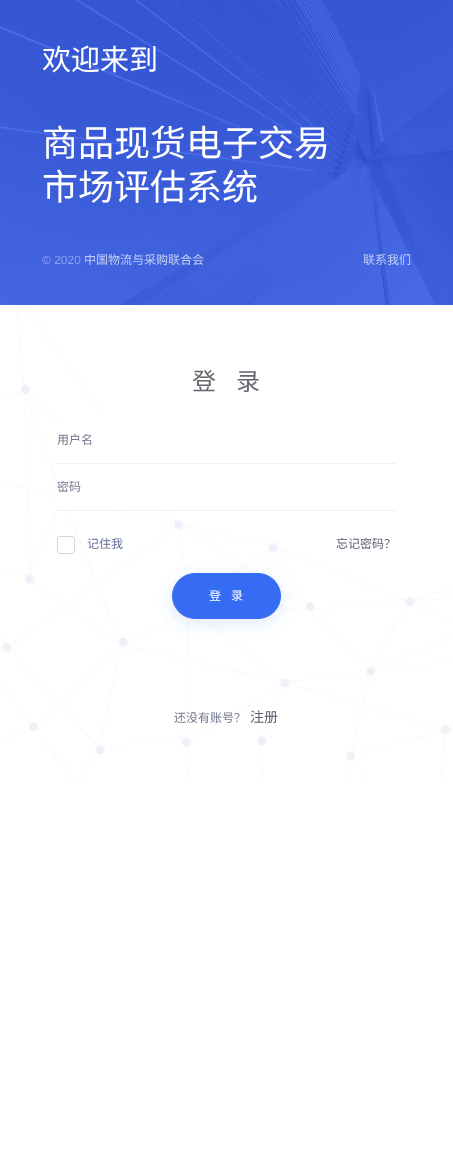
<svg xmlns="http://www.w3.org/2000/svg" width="453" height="1172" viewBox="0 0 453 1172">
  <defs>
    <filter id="blur1" x="-50%" y="-200%" width="200%" height="500%"><feGaussianBlur stdDeviation="8"/></filter>
  </defs>
  <rect width="100%" height="100%" fill="#ffffff"/>
  <image x="0" y="0" width="453" height="305" href="img1.png"/>
  <text x="42" y="70" font-family="Noto Sans CJK SC" font-size="29" fill="#ffffff">欢迎来到</text>
  <text x="42" y="156" font-family="Noto Sans CJK SC" font-size="36" fill="#ffffff">商品现货电子交易</text>
  <text x="42" y="200" font-family="Noto Sans CJK SC" font-size="36" fill="#ffffff">市场评估系统</text>
  <text x="42" y="264" font-family="Liberation Sans" font-size="12" fill="#8da1eb">© 2020</text>
  <text x="84" y="264" font-family="Noto Sans CJK SC" font-size="12" fill="#c6d0f5">中国物流与采购联合会</text>
  <text x="363" y="264" font-family="Noto Sans CJK SC" font-size="12" fill="#c6d0f5">联系我们</text>
  <image x="0" y="305" width="453" height="475" href="img2.png"/>
  <text x="192" y="390" font-family="Noto Sans CJK SC" font-size="24" fill="#67666e">登</text>
  <text x="236" y="390" font-family="Noto Sans CJK SC" font-size="24" fill="#67666e">录</text>
  <rect x="57" y="418" width="80" height="45" fill="#ffffff"/>
  <rect x="57" y="463" width="339" height="1" fill="#ebedf2" fill-opacity="0.8"/>
  <text x="57" y="444" font-family="Noto Sans CJK SC" font-size="12" fill="#74788d">用户名</text>
  <rect x="57" y="465" width="113" height="45" fill="#ffffff"/>
  <rect x="57" y="510" width="339" height="1" fill="#ebedf2" fill-opacity="0.8"/>
  <text x="57" y="491" font-family="Noto Sans CJK SC" font-size="12" fill="#74788d">密码</text>
  <rect x="57.5" y="536.5" width="17" height="17" rx="2.5" fill="none" stroke="#d1d7e2"/>
  <text x="87" y="548" font-family="Noto Sans CJK SC" font-size="12" fill="#646c9a">记住我</text>
  <text x="336" y="548" font-family="Noto Sans CJK SC" font-size="12" fill="#595d6e">忘记密码？</text>
  <rect x="172" y="577" width="109" height="46" rx="23" fill="#366cf3" fill-opacity="0.15" filter="url(#blur1)"/>
  <rect x="172.5" y="573.5" width="108" height="45" rx="22.5" fill="#366cf3" stroke="#366cf3"/>
  <text x="209" y="600" font-family="Noto Sans CJK SC" font-size="12" fill="#ffffff">登</text>
  <text x="231" y="600" font-family="Noto Sans CJK SC" font-size="12" fill="#ffffff">录</text>
  <text x="174" y="722" font-family="Noto Sans CJK SC" font-size="12" fill="#74788d">还没有账号？</text>
  <text x="250" y="722" font-family="Noto Sans CJK SC" font-size="14" fill="#595d6e">注册</text>
</svg>
